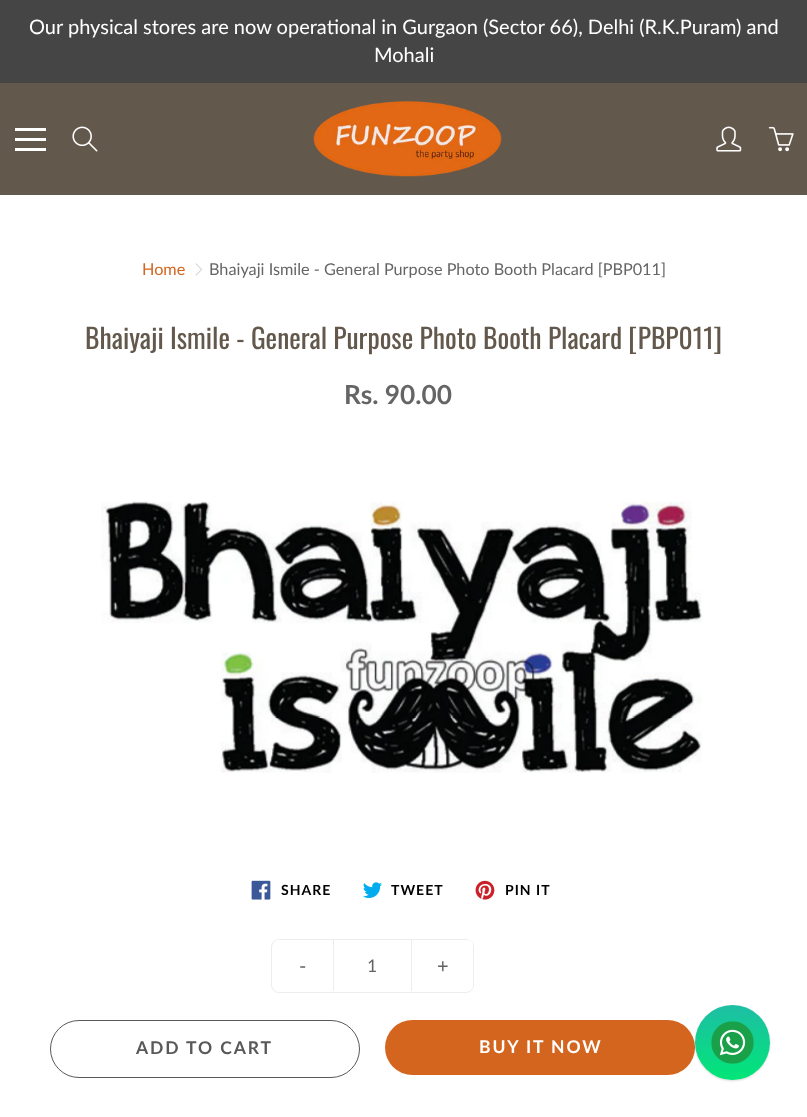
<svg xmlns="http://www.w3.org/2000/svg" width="807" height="1117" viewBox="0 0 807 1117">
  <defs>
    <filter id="blur1" x="-50%" y="-200%" width="200%" height="500%"><feGaussianBlur stdDeviation="1"/></filter>
    <linearGradient id="g1" gradientUnits="userSpaceOnUse" x1="733" y1="1005" x2="733" y2="1080"><stop offset="0" stop-color="#1ebea5"/><stop offset="1" stop-color="#01e677"/></linearGradient>
  </defs>
  <rect width="100%" height="100%" fill="#ffffff"/>
  <rect x="0" y="0" width="807" height="83" fill="#454545"/>
  <text x="29" y="34" font-family="Lato" font-size="20" fill="#ffffff">Our physical stores are now operational in Gurgaon (Sector 66), Delhi (R.K.Puram) and</text>
  <text x="374" y="62" font-family="Lato" font-size="20" fill="#ffffff">Mohali</text>
  <rect x="0" y="83" width="807" height="112" fill="#63584c"/>
  <rect x="15" y="138" width="31" height="3" fill="#ffffff"/>
  <rect x="15" y="128" width="31" height="3" fill="#ffffff"/>
  <rect x="15" y="148" width="31" height="3" fill="#ffffff"/>
  <image x="72" y="126" width="26" height="26" href="img1.png"/>
  <image x="313" y="101" width="189" height="76" href="img2.png"/>
  <image x="716" y="126" width="26" height="26" href="img3.png"/>
  <image x="768" y="126" width="26" height="26" href="img4.png"/>
  <text x="142" y="275" font-family="Lato" font-size="16.25" fill="#d4651f">Home</text>
  <image x="195" y="263" width="7" height="13" href="img5.png"/>
  <text x="209" y="275" font-family="Lato" font-size="16.25" fill="#666565">Bhaiyaji Ismile - General Purpose Photo Booth Placard [PBP011]</text>
  <text x="85" y="349" font-family="Oswald" font-size="27.5" fill="#63584c">Bhaiyaji Ismile - General Purpose Photo Booth Placard [PBP011]</text>
  <text x="344" y="404" font-family="Lato" font-size="26.25" font-weight="bold" fill="#666565">Rs. 90.00</text>
  <image x="101" y="501" width="601" height="272" href="img6.png"/>
  <image x="251" y="880" width="20" height="20" href="img7.png"/>
  <text x="281" y="895" font-family="Lato" font-size="14" font-weight="bold" letter-spacing="1" fill="#000000">SHARE</text>
  <image x="363" y="882" width="19" height="16" href="img8.png"/>
  <text x="391" y="895" font-family="Lato" font-size="14" font-weight="bold" letter-spacing="1" fill="#000000">TWEET</text>
  <image x="475" y="880" width="20" height="20" href="img9.png"/>
  <text x="505" y="895" font-family="Lato" font-size="14" font-weight="bold" letter-spacing="1" fill="#000000">PIN IT</text>
  <rect x="271.5" y="939.5" width="202" height="53" rx="7.5" fill="none" stroke="#ededed"/>
  <path d="M279 940H333V991H279C275.5 991 273 988.5 273 985V946C273 942.5 275.5 940 279 940Z" fill="#ffffff"/>
  <text x="299" y="973" font-family="Lato" font-size="20" fill="#666565">-</text>
  <rect x="411" y="940" width="1" height="51" fill="#ededed"/>
  <rect x="333" y="940" width="1" height="51" fill="#ededed"/>
  <text x="367" y="972" font-family="Lato" font-size="17.5" fill="#666565">1</text>
  <path d="M413 940H467C470.5 940 473 942.5 473 946V985C473 988.5 470.5 991 467 991H413Z" fill="#ffffff"/>
  <text x="437" y="973" font-family="Lato" font-size="20" fill="#666565">+</text>
  <rect x="50.5" y="1020.5" width="309" height="57" rx="28.5" fill="none" stroke="#595959"/>
  <text x="136" y="1054" font-family="Lato" font-size="17.5" font-weight="bold" letter-spacing="1.9" fill="#595959">ADD TO CART</text>
  <rect x="385" y="1020" width="310" height="55" rx="27.5" fill="#d4651f"/>
  <text x="479" y="1053" font-family="Lato" font-size="17.5" font-weight="bold" letter-spacing="1.9" fill="#ffffff">BUY IT NOW</text>
  <rect x="695" y="1006" width="75" height="75" rx="37.5" fill="#000000" fill-opacity="0.15" filter="url(#blur1)"/>
  <circle cx="732.5" cy="1042.5" r="37.5" fill="url(#g1)"/>
  <image x="711" y="1021" width="43" height="43" href="img10.png"/>
</svg>
